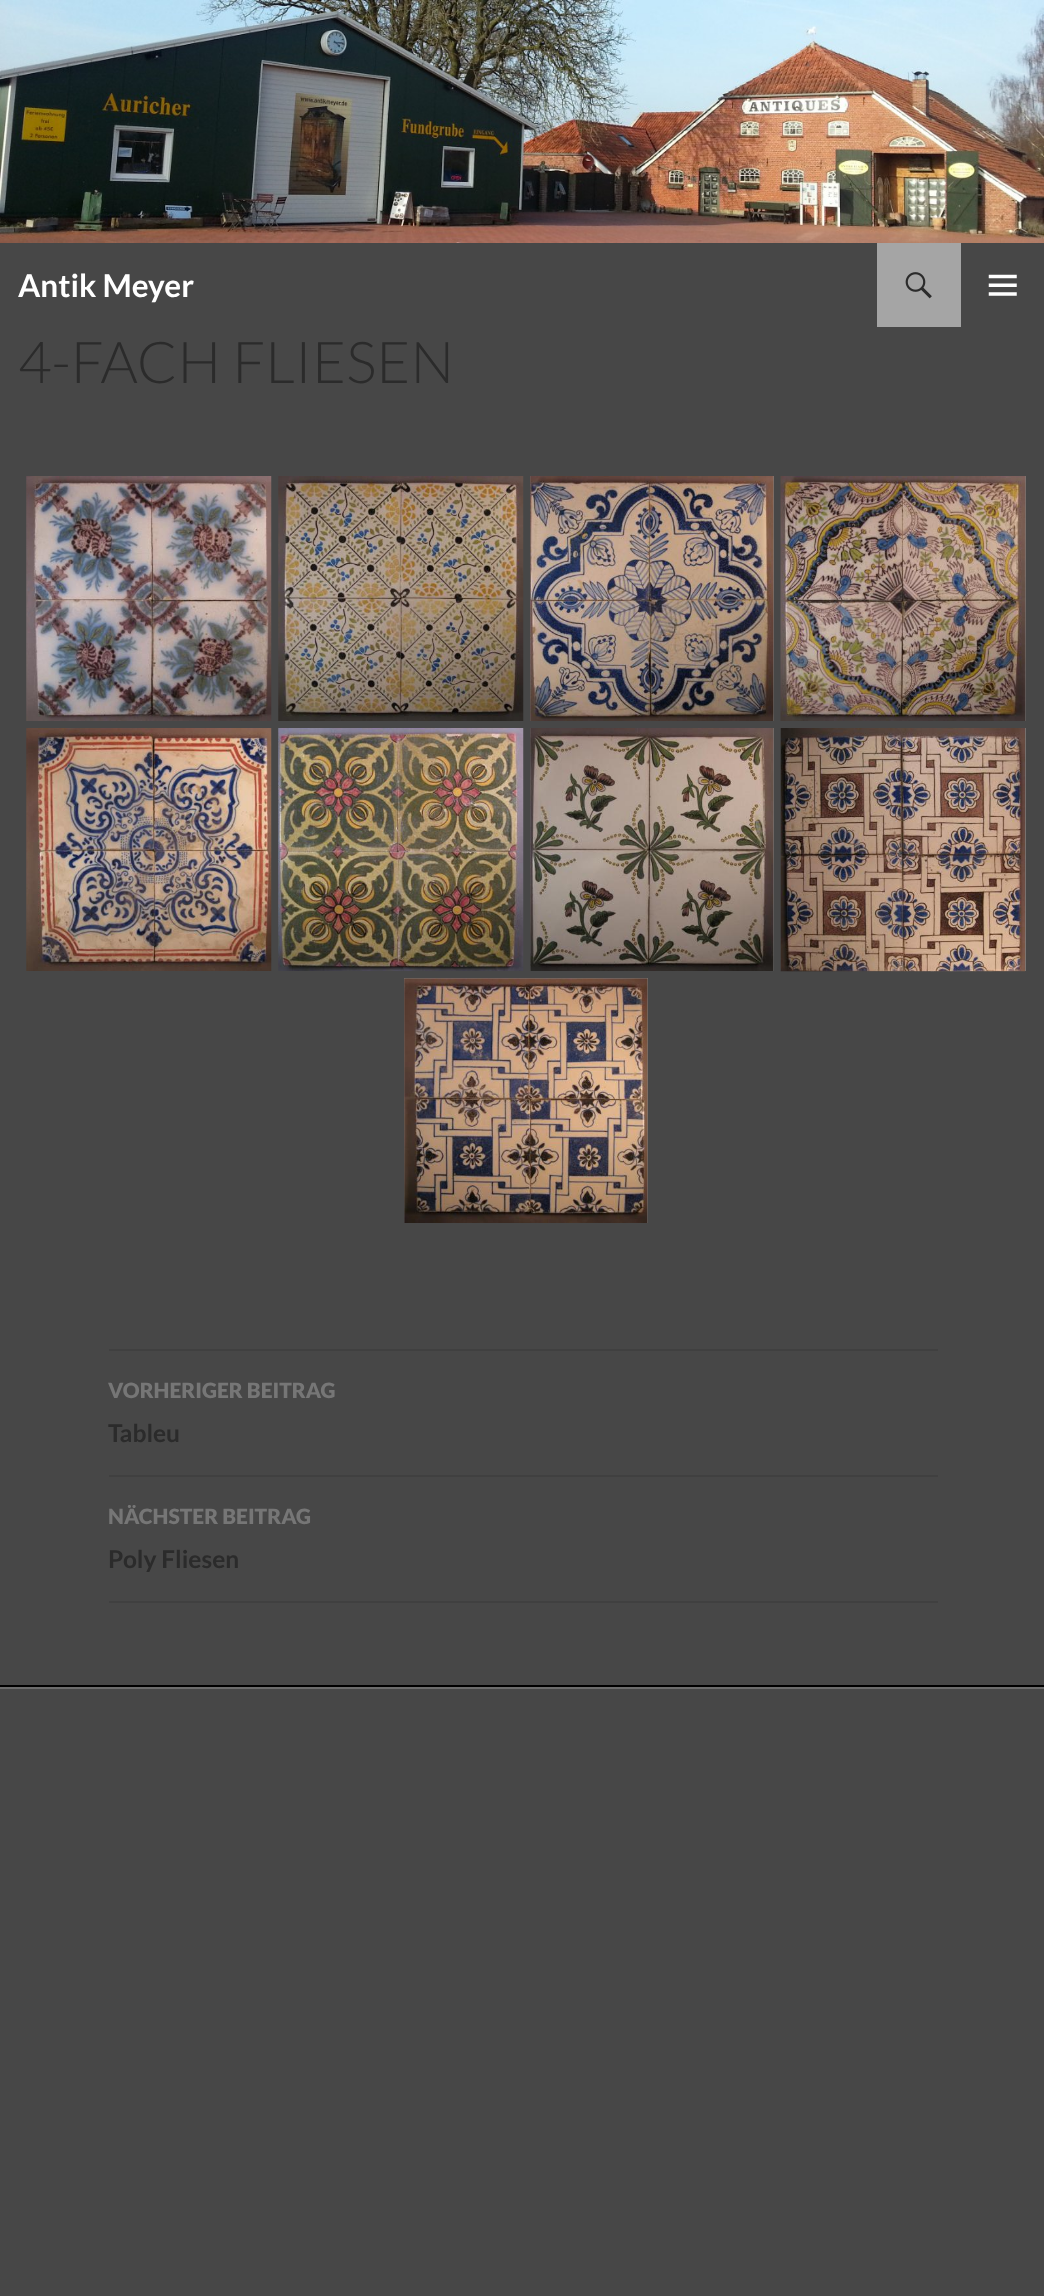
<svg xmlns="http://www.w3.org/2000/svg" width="1044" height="2296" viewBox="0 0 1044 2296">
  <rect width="100%" height="100%" fill="#474747"/>
  <image x="0" y="0" width="1044" height="243" href="img1.png"/>
  <text x="18" y="297" font-family="Lato" font-size="31.5" font-weight="bold" fill="#ffffff">Antik Meyer</text>
  <rect x="877" y="243" width="84" height="84" fill="#a5a5a5"/>
  <image x="905" y="272" width="27" height="27" href="img2.png"/>
  <image x="988" y="274" width="29" height="22" href="img3.png"/>
  <text x="18" y="383" font-family="Lato" font-size="57.75" font-weight="300" fill="#2b2b2b">4-FACH FLIESEN</text>
  <image x="26" y="476" width="246" height="245" href="img4.png"/>
  <image x="278" y="476" width="246" height="245" href="img5.png"/>
  <rect x="530" y="476" width="244" height="245" fill="#7e7e7e"/>
  <image x="530" y="476" width="244" height="245" href="img6.png"/>
  <rect x="1025" y="476" width="1" height="245" fill="#7e7e7e"/>
  <image x="780" y="476" width="246" height="245" href="img7.png"/>
  <image x="26" y="728" width="246" height="243" href="img8.png"/>
  <image x="278" y="728" width="246" height="243" href="img9.png"/>
  <rect x="530" y="728" width="244" height="243" fill="#7e7e7e"/>
  <image x="530" y="728" width="244" height="243" href="img10.png"/>
  <rect x="1025" y="728" width="1" height="243" fill="#7e7e7e"/>
  <image x="780" y="728" width="246" height="244" href="img11.png"/>
  <rect x="404" y="978" width="244" height="245" fill="#7e7e7e"/>
  <image x="404" y="978" width="244" height="245" href="img12.png"/>
  <rect x="109" y="1349" width="829" height="2" fill="#404040"/>
  <rect x="109" y="1475" width="829" height="2" fill="#404040"/>
  <text x="108" y="1398" font-family="Lato" font-size="21" font-weight="900" fill="#767676">VORHERIGER BEITRAG</text>
  <text x="108" y="1442" font-family="Lato" font-size="24.5" font-weight="bold" fill="#2b2b2b">Tableu</text>
  <rect x="109" y="1601" width="829" height="2" fill="#404040"/>
  <text x="108" y="1524" font-family="Lato" font-size="21" font-weight="900" fill="#767676">NÄCHSTER BEITRAG</text>
  <text x="108" y="1568" font-family="Lato" font-size="24.5" font-weight="bold" fill="#2b2b2b">Poly Fliesen</text>
  <rect x="0" y="1685" width="1044" height="2" fill="#000000"/>
  <rect x="0" y="1687" width="1044" height="2" fill="#6c6c6c"/>
</svg>
